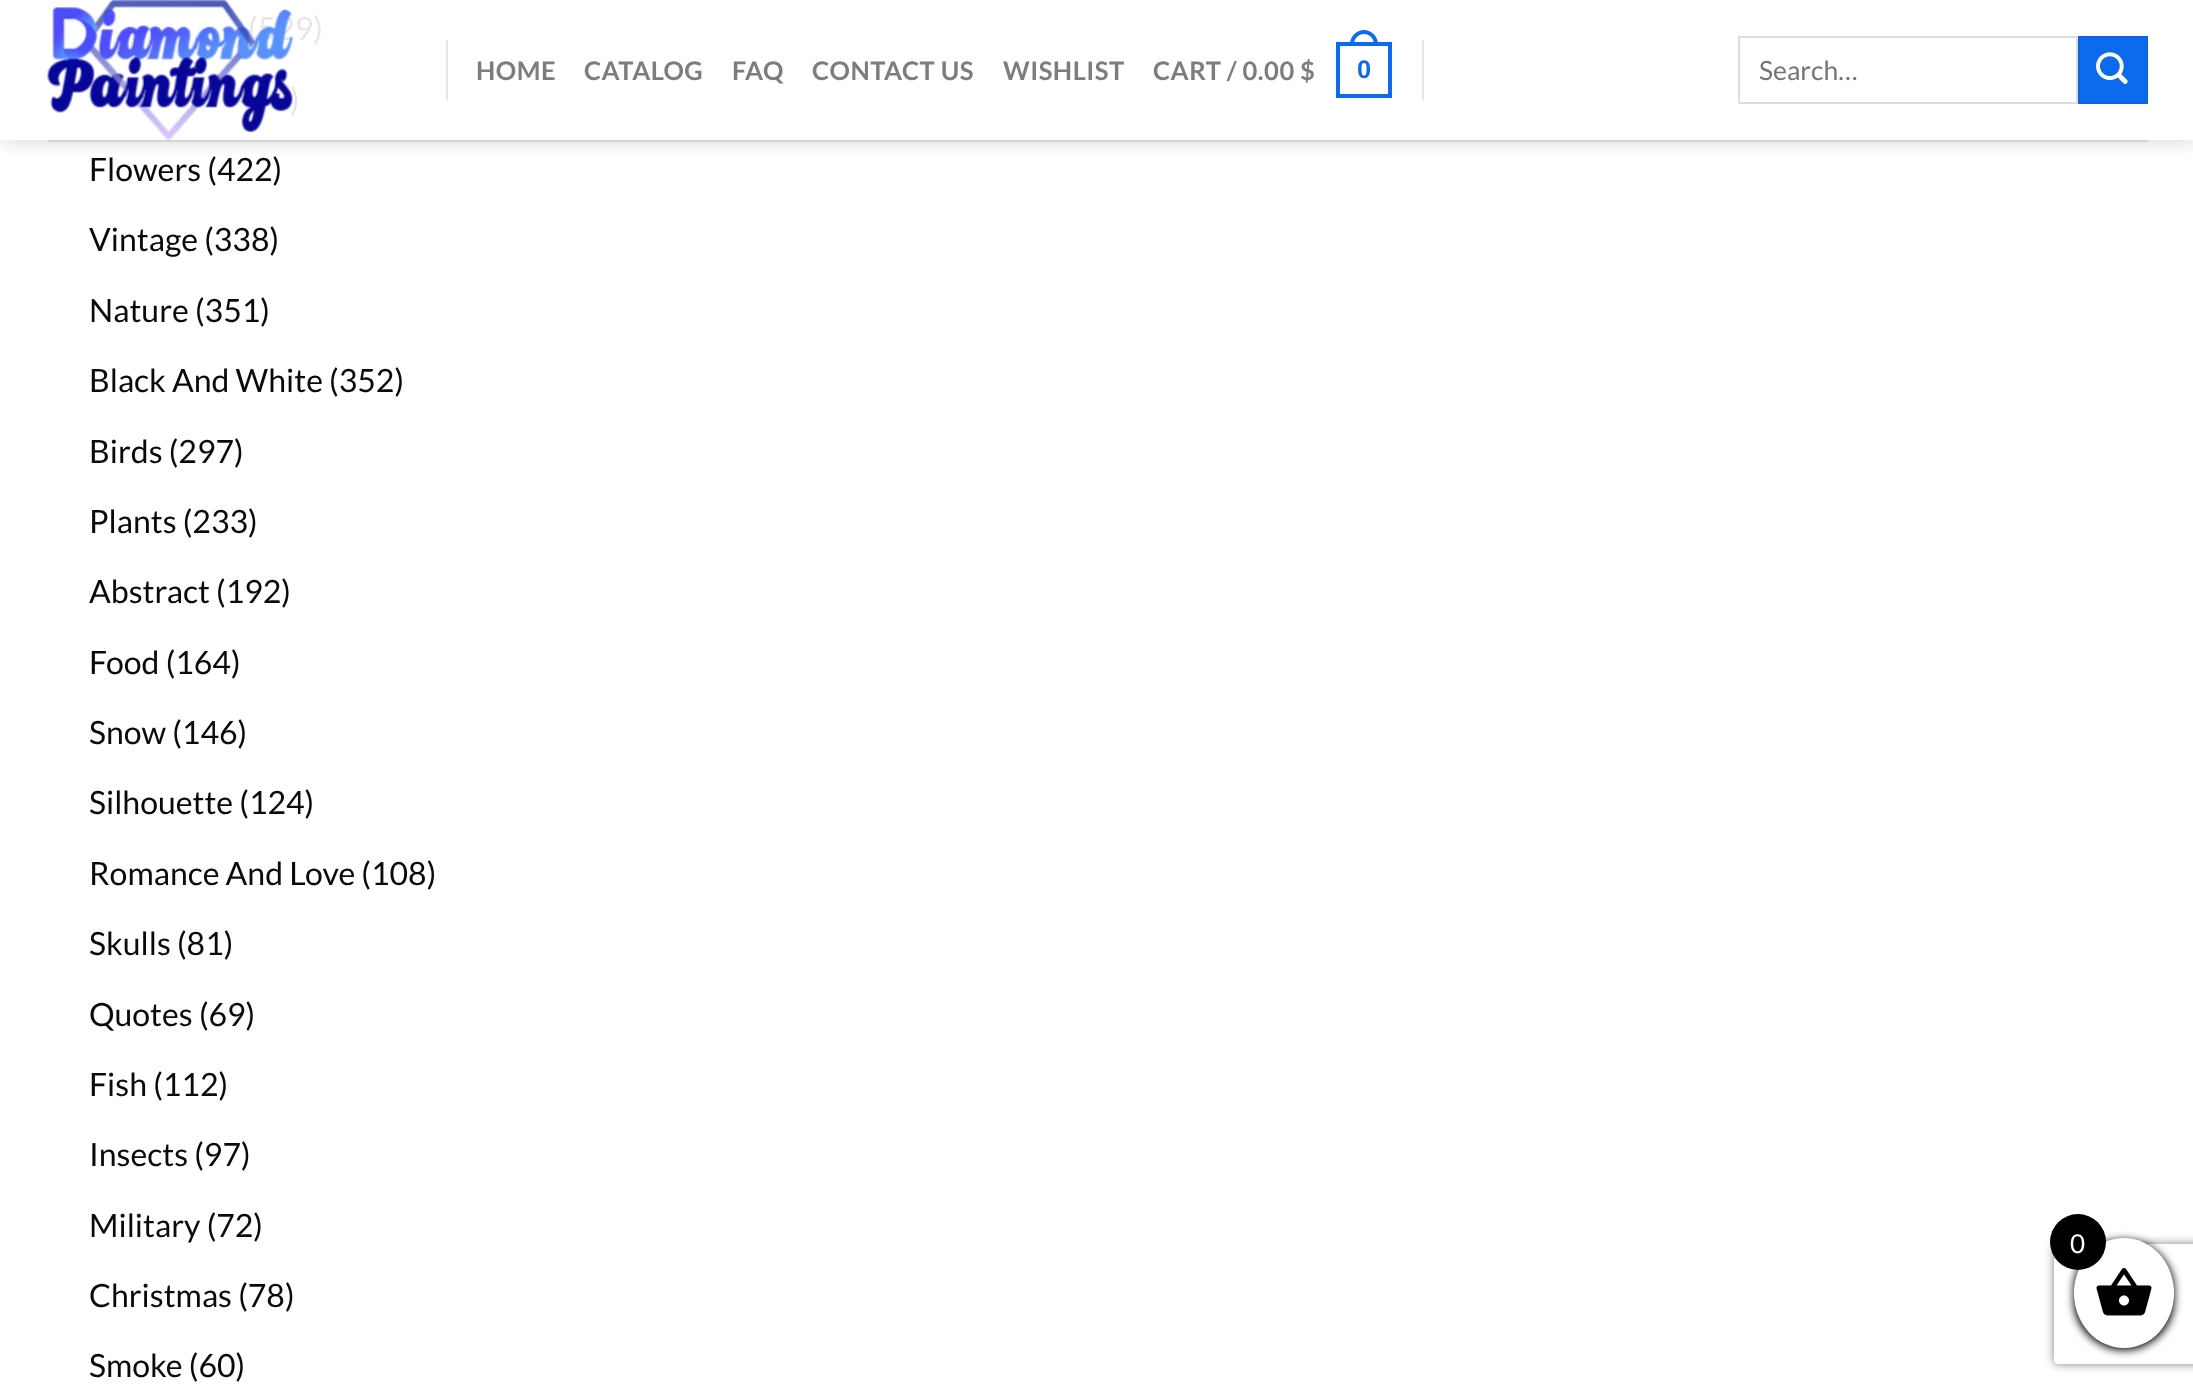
<svg xmlns="http://www.w3.org/2000/svg" width="2193" height="1392" viewBox="0 0 2193 1392">
  <defs>
    <clipPath id="clip1"><rect x="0" y="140" width="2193" height="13"/></clipPath>
    <filter id="blur1" x="-50%" y="-200%" width="200%" height="500%"><feGaussianBlur stdDeviation="10"/></filter>
    <clipPath id="clip2"><path d="M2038 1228H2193V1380H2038ZM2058 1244H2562C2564 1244 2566 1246 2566 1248V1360C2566 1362 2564 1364 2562 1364H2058C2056 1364 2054 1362 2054 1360V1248C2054 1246 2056 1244 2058 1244Z" clip-rule="evenodd"/></clipPath>
    <filter id="blur2" x="-50%" y="-200%" width="200%" height="500%"><feGaussianBlur stdDeviation="5"/></filter>
    <filter id="blur3" x="-50%" y="-200%" width="200%" height="500%"><feGaussianBlur stdDeviation="4"/></filter>
  </defs>
  <rect width="100%" height="100%" fill="#ffffff"/>
  <text x="248" y="40" font-family="Lato" font-size="32" fill="#e7e7e7">(529)</text>
  <text x="290" y="111" font-family="Lato" font-size="32" fill="#e7e7e7">)</text>
  <text x="89" y="181" font-family="Lato" font-size="32" fill="#0a0a0a">Flowers (422)</text>
  <text x="89" y="251" font-family="Lato" font-size="32" fill="#0a0a0a">Vintage (338)</text>
  <text x="89" y="322" font-family="Lato" font-size="32" fill="#0a0a0a">Nature (351)</text>
  <text x="89" y="392" font-family="Lato" font-size="32" fill="#0a0a0a">Black And White (352)</text>
  <text x="89" y="463" font-family="Lato" font-size="32" fill="#0a0a0a">Birds (297)</text>
  <text x="89" y="533" font-family="Lato" font-size="32" fill="#0a0a0a">Plants (233)</text>
  <text x="89" y="603" font-family="Lato" font-size="32" fill="#0a0a0a">Abstract (192)</text>
  <text x="89" y="674" font-family="Lato" font-size="32" fill="#0a0a0a">Food (164)</text>
  <text x="89" y="744" font-family="Lato" font-size="32" fill="#0a0a0a">Snow (146)</text>
  <text x="89" y="814" font-family="Lato" font-size="32" fill="#0a0a0a">Silhouette (124)</text>
  <text x="89" y="885" font-family="Lato" font-size="32" fill="#0a0a0a">Romance And Love (108)</text>
  <text x="89" y="955" font-family="Lato" font-size="32" fill="#0a0a0a">Skulls (81)</text>
  <text x="89" y="1026" font-family="Lato" font-size="32" fill="#0a0a0a">Quotes (69)</text>
  <text x="89" y="1096" font-family="Lato" font-size="32" fill="#0a0a0a">Fish (112)</text>
  <text x="89" y="1166" font-family="Lato" font-size="32" fill="#0a0a0a">Insects (97)</text>
  <text x="89" y="1237" font-family="Lato" font-size="32" fill="#0a0a0a">Military (72)</text>
  <text x="89" y="1307" font-family="Lato" font-size="32" fill="#0a0a0a">Christmas (78)</text>
  <text x="89" y="1377" font-family="Lato" font-size="32" fill="#0a0a0a">Smoke (60)</text>
  <g clip-path="url(#clip1)">
    <rect x="2" y="2" width="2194" height="140" fill="#000000" fill-opacity="0.15" filter="url(#blur1)"/>
  </g>
  <image x="47" y="0" width="246" height="140" href="img1.png"/>
  <rect x="446" y="40" width="2" height="60" fill="#e6e6e6"/>
  <text x="476" y="80" font-family="Lato" font-size="25.5" font-weight="bold" letter-spacing="0.5" fill="#7d7d7d">HOME</text>
  <text x="584" y="80" font-family="Lato" font-size="25.5" font-weight="bold" letter-spacing="0.5" fill="#7d7d7d">CATALOG</text>
  <text x="732" y="80" font-family="Lato" font-size="25.5" font-weight="bold" letter-spacing="0.5" fill="#7d7d7d">FAQ</text>
  <text x="812" y="80" font-family="Lato" font-size="25.5" font-weight="bold" letter-spacing="0.5" fill="#7d7d7d">CONTACT US</text>
  <text x="1003" y="80" font-family="Lato" font-size="25.5" font-weight="bold" letter-spacing="0.5" fill="#7d7d7d">WISHLIST</text>
  <text x="1153" y="80" font-family="Lato" font-size="25.5" font-weight="bold" letter-spacing="0.5" fill="#7d7d7d">CART / 0.00 $</text>
  <rect x="1338" y="44" width="52" height="52" fill="none" stroke="#0c6aed" stroke-width="4"/>
  <path d="M1364 30C1371.5 30 1378 36.5 1378 44V46H1350V44C1350 36.5 1356.5 30 1364 30ZM1364 34C1369.5 34 1374 38.5 1374 44V46H1354V44C1354 38.5 1358.5 34 1364 34Z" fill="#0c6aed" fill-rule="evenodd"/>
  <text x="1357" y="78" font-family="Liberation Sans" font-size="25.5" font-weight="bold" letter-spacing="0.5" fill="#0c6aed">0</text>
  <rect x="1422" y="40" width="2" height="60" fill="#e6e6e6"/>
  <rect x="1739" y="37" width="338" height="66" fill="none" stroke="#dddddd" stroke-width="2"/>
  <text x="1759" y="80" font-family="Lato" font-size="26.5" fill="#757575">Search…</text>
  <rect x="2079" y="37" width="68" height="66" fill="#0c6aed" stroke="#0b65e1" stroke-width="2"/>
  <image x="2096" y="52" width="32" height="32" href="img2.png"/>
  <rect x="48" y="140" width="2100" height="2" fill="#d4d4d4"/>
  <g clip-path="url(#clip2)">
    <rect x="2054" y="1244" width="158" height="120" rx="4" fill="#808080" filter="url(#blur2)"/>
  </g>
  <rect x="2074" y="1240" width="100" height="110" rx="50" fill="#000000" filter="url(#blur3)"/>
  <ellipse cx="2124" cy="1293" rx="50" ry="55" fill="#ffffff"/>
  <circle cx="2078" cy="1242" r="28" fill="#000000"/>
  <text x="2070" y="1253" font-family="Lato" font-size="26" fill="#ffffff">0</text>
  <image x="2096" y="1268" width="56" height="48" href="img3.png"/>
</svg>
